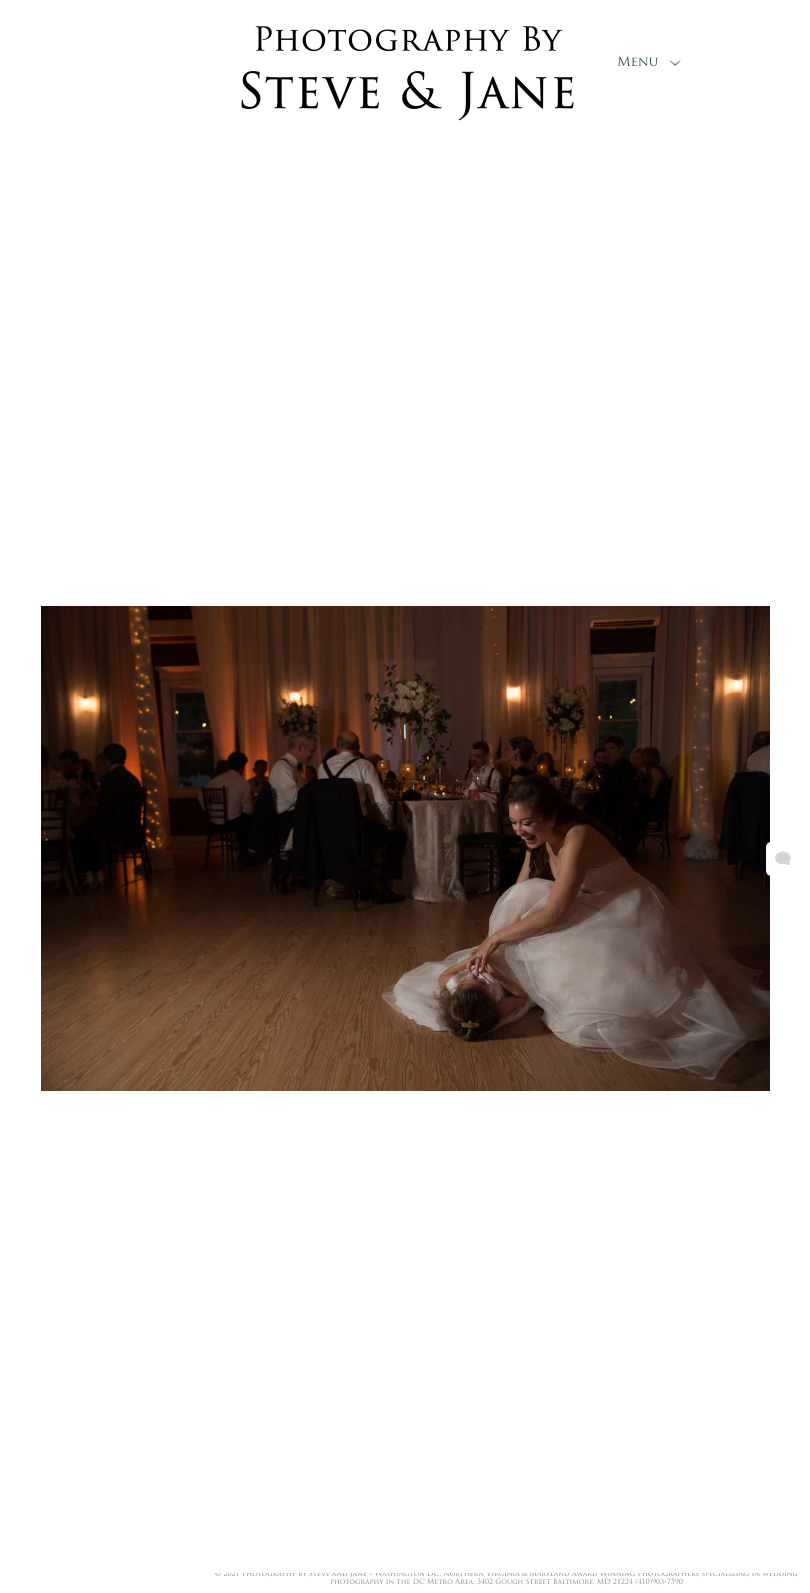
<svg xmlns="http://www.w3.org/2000/svg" width="810" height="1593" viewBox="0 0 810 1593">
  <rect width="100%" height="100%" fill="#ffffff"/>
  <image x="241" y="26" width="333" height="95" href="img1.png"/>
  <image x="617" y="56" width="41" height="11" href="img2.png"/>
  <image x="669" y="60" width="12" height="6" href="img3.png"/>
  <image x="41" y="606" width="729" height="485" href="img4.png"/>
  <rect x="766" y="842" width="34" height="34" rx="5" fill="#ffffff"/>
  <image x="775" y="851" width="16" height="14" href="img5.png"/>
  <image x="215" y="1573" width="583" height="5" href="img6.png"/>
  <image x="330" y="1578" width="145" height="7" href="img7.png"/>
  <image x="477" y="1578" width="206" height="7" href="img8.png"/>
</svg>
